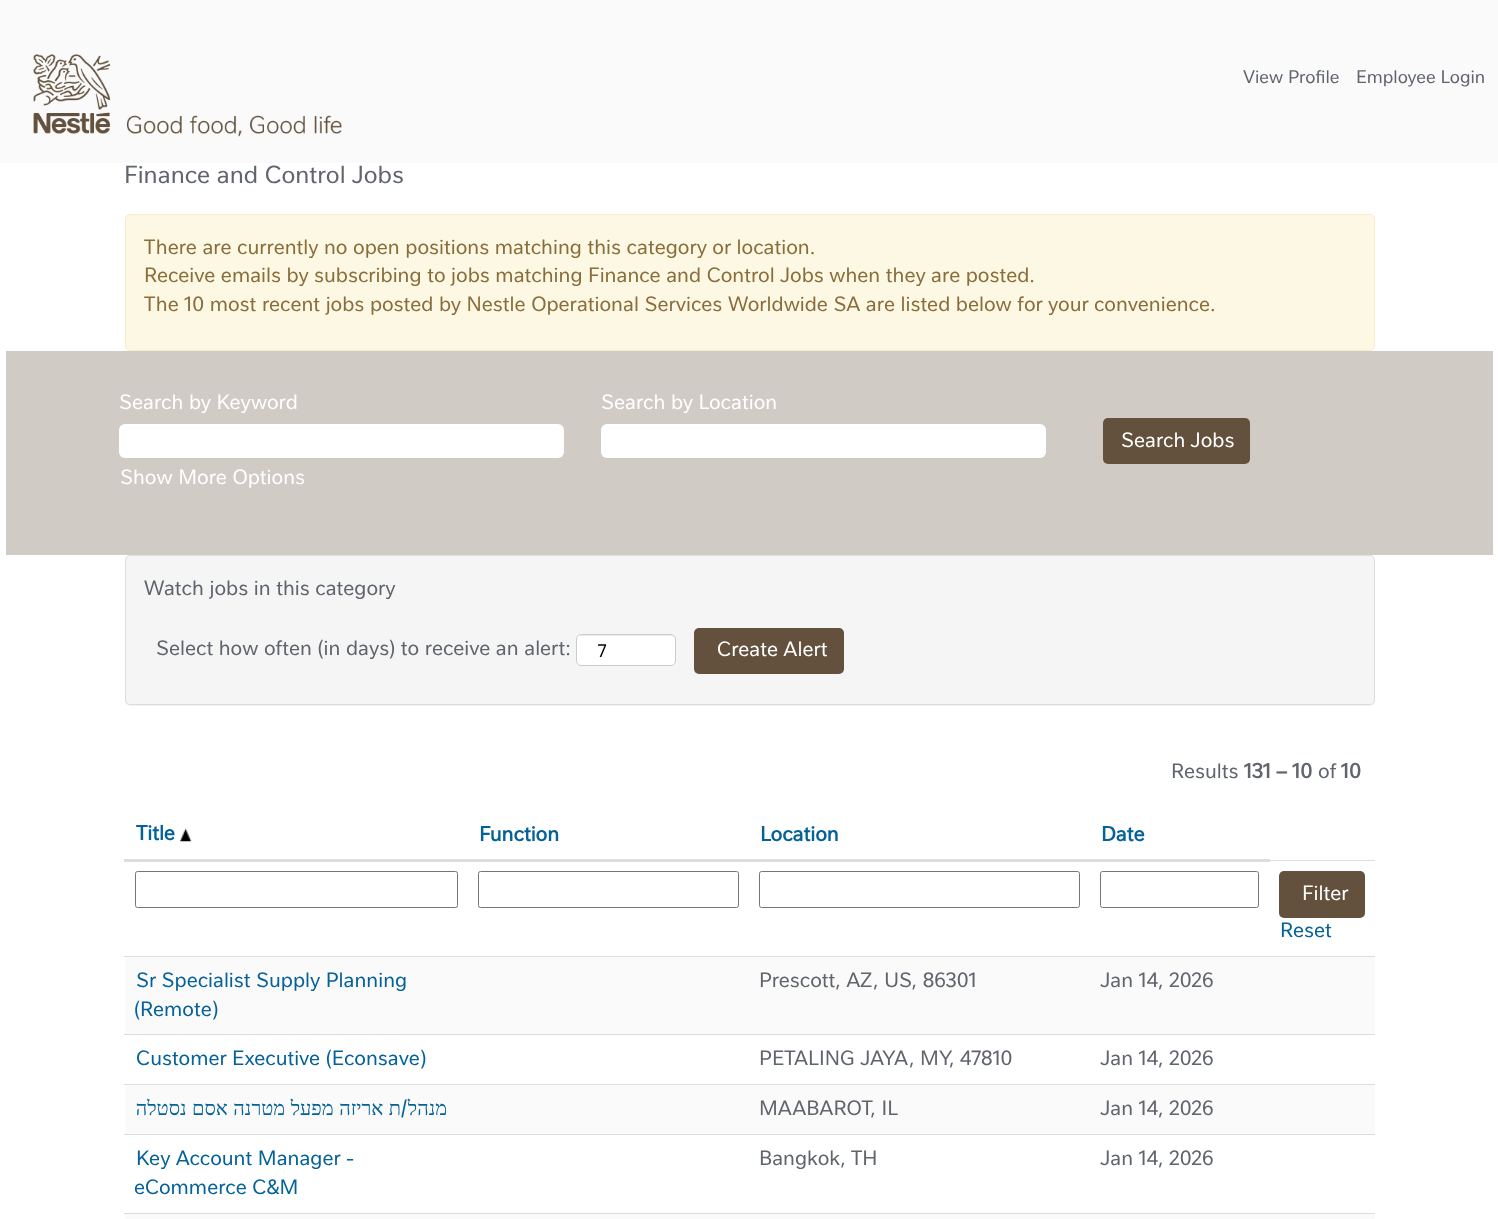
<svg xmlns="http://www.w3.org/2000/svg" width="1498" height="1219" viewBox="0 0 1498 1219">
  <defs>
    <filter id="blur1" x="-50%" y="-200%" width="200%" height="500%"><feGaussianBlur stdDeviation="0.5"/></filter>
  </defs>
  <rect width="100%" height="100%" fill="#fafafa"/>
  <image x="33" y="54" width="309" height="83" href="img1.png"/>
  <text x="1243" y="83" font-family="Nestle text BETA" font-size="17.5" fill="#60646c">View Profile</text>
  <text x="1356" y="83" font-family="Nestle text BETA" font-size="17.5" fill="#60646c">Employee Login</text>
  <rect x="0" y="163" width="1498" height="1056" fill="#ffffff"/>
  <text x="124" y="183" font-family="Nestle text BETA" font-size="23.75" fill="#60646c">Finance and Control Jobs</text>
  <rect x="125.5" y="214.5" width="1249" height="136" rx="4.5" fill="#fcf8e3" stroke="#faebcc"/>
  <text x="144" y="254" font-family="Nestle text BETA" font-size="20" fill="#8a6d3b">There are currently no open positions matching this category or location.</text>
  <text x="144" y="282" font-family="Nestle text BETA" font-size="20" fill="#8a6d3b">Receive emails by subscribing to jobs matching Finance and Control Jobs when they are posted.</text>
  <text x="144" y="311" font-family="Nestle text BETA" font-size="20" fill="#8a6d3b">The 10 most recent jobs posted by Nestle Operational Services Worldwide SA are listed below for your convenience.</text>
  <rect x="6" y="351" width="1487" height="204" fill="#d1cbc5"/>
  <text x="119" y="409" font-family="Nestle text BETA" font-size="20" fill="#ffffff">Search by Keyword</text>
  <rect x="119" y="424" width="445" height="34" rx="6" fill="#ffffff"/>
  <text x="601" y="409" font-family="Nestle text BETA" font-size="20" fill="#ffffff">Search by Location</text>
  <rect x="601" y="424" width="445" height="34" rx="6" fill="#ffffff"/>
  <text x="120" y="484" font-family="Nestle text BETA" font-size="20" fill="#ffffff">Show More Options</text>
  <rect x="1103" y="418" width="147" height="46" rx="5" fill="#63513d"/>
  <text x="1121" y="447" font-family="Nestle text BETA" font-size="20" fill="#ffffff">Search Jobs</text>
  <rect x="125" y="556" width="1250" height="150" rx="5" fill="#000000" fill-opacity="0.05" filter="url(#blur1)"/>
  <rect x="125.5" y="555.5" width="1249" height="149" rx="4.5" fill="#f5f5f5" stroke="#dddddd"/>
  <text x="144" y="595" font-family="Nestle text BETA" font-size="20" fill="#60646c">Watch jobs in this category</text>
  <text x="156" y="655" font-family="Nestle text BETA" font-size="20" fill="#60646c">Select how often (in days) to receive an alert:</text>
  <rect x="576" y="634" width="100" height="32" rx="5" fill="#ffffff"/>
  <path d="M581 636H671C673 636 675 638 675 640C675 631 661 635 656 635H597C592 635 578 631 578 640C578 638 579 636 581 636Z" fill="#ececec"/>
  <rect x="576.5" y="634.5" width="99" height="31" rx="4.5" fill="none" stroke="#cccccc"/>
  <text x="598" y="657" font-family="Nestle text BETA" font-size="17.5" fill="#000000">7</text>
  <rect x="694" y="628" width="150" height="46" rx="5" fill="#63513d"/>
  <text x="717" y="656" font-family="Nestle text BETA" font-size="20" fill="#ffffff">Create Alert</text>
  <text x="1171" y="778" font-family="Nestle text BETA" font-size="20" fill="#60646c">Results</text>
  <text x="1244" y="778" font-family="Nestle text BETA" font-size="20" font-weight="bold" fill="#60646c">131 – 10</text>
  <text x="1318" y="778" font-family="Nestle text BETA" font-size="20" fill="#60646c">of</text>
  <text x="1341" y="778" font-family="Nestle text BETA" font-size="20" font-weight="bold" fill="#60646c">10</text>
  <text x="136" y="840" font-family="Nestle text BETA" font-size="20" font-weight="bold" fill="#056298">Title</text>
  <image x="180" y="828" width="12" height="14" href="img2.png"/>
  <text x="479" y="841" font-family="Nestle text BETA" font-size="20" font-weight="bold" fill="#056298">Function</text>
  <text x="760" y="841" font-family="Nestle text BETA" font-size="20" font-weight="bold" fill="#056298">Location</text>
  <rect x="1269" y="860" width="106" height="1" fill="#dddddd"/>
  <rect x="124" y="859" width="1146" height="3" fill="#dddddd"/>
  <text x="1101" y="841" font-family="Nestle text BETA" font-size="20" font-weight="bold" fill="#056298">Date</text>
  <rect x="135.5" y="871.5" width="322" height="36" rx="2" fill="none" stroke="#767676"/>
  <rect x="478.5" y="871.5" width="260" height="36" rx="2" fill="none" stroke="#767676"/>
  <rect x="759.5" y="871.5" width="320" height="36" rx="2" fill="none" stroke="#767676"/>
  <rect x="1100.5" y="871.5" width="158" height="36" rx="2" fill="none" stroke="#767676"/>
  <rect x="1279" y="871" width="86" height="47" rx="5" fill="#63513d"/>
  <text x="1302" y="900" font-family="Nestle text BETA" font-size="20" fill="#ffffff">Filter</text>
  <text x="1280" y="937" font-family="Nestle text BETA" font-size="20" fill="#056298">Reset</text>
  <rect x="125" y="957" width="1250" height="77" fill="#fafafa"/>
  <rect x="124" y="956" width="1251" height="1" fill="#dddddd"/>
  <text x="136" y="987" font-family="Nestle text BETA" font-size="20" fill="#056298">Sr Specialist Supply Planning</text>
  <text x="134" y="1016" font-family="Nestle text BETA" font-size="20" fill="#056298">(Remote)</text>
  <text x="759" y="987" font-family="Nestle text BETA" font-size="20" fill="#60646c">Prescott, AZ, US, 86301</text>
  <text x="1100" y="987" font-family="Nestle text BETA" font-size="20" fill="#60646c">Jan 14, 2026</text>
  <rect x="124" y="1034" width="1251" height="1" fill="#dddddd"/>
  <text x="136" y="1065" font-family="Nestle text BETA" font-size="20" fill="#056298">Customer Executive (Econsave)</text>
  <text x="759" y="1065" font-family="Nestle text BETA" font-size="20" fill="#60646c">PETALING JAYA, MY, 47810</text>
  <text x="1100" y="1065" font-family="Nestle text BETA" font-size="20" fill="#60646c">Jan 14, 2026</text>
  <rect x="125" y="1085" width="1250" height="49" fill="#fafafa"/>
  <rect x="124" y="1084" width="1251" height="1" fill="#dddddd"/>
  <text x="401" y="1115" word-spacing="0.5" font-family="Liberation Serif" font-size="20" direction="rtl" fill="#056298">ת אריזה מפעל מטרנה אסם נסטלה</text>
  <text x="407" y="1115" font-family="Nestle text BETA" font-size="20" direction="rtl" fill="#056298">/</text>
  <text x="447" y="1115" font-family="Liberation Serif" font-size="20" direction="rtl" fill="#056298">מנהל</text>
  <text x="759" y="1115" font-family="Nestle text BETA" font-size="20" fill="#60646c">MAABAROT, IL</text>
  <text x="1100" y="1115" font-family="Nestle text BETA" font-size="20" fill="#60646c">Jan 14, 2026</text>
  <rect x="124" y="1134" width="1251" height="1" fill="#dddddd"/>
  <text x="136" y="1165" font-family="Nestle text BETA" font-size="20" fill="#056298">Key Account Manager -</text>
  <text x="134" y="1194" font-family="Nestle text BETA" font-size="20" fill="#056298">eCommerce C&amp;M</text>
  <text x="759" y="1165" font-family="Nestle text BETA" font-size="20" fill="#60646c">Bangkok, TH</text>
  <text x="1100" y="1165" font-family="Nestle text BETA" font-size="20" fill="#60646c">Jan 14, 2026</text>
  <rect x="125" y="1214" width="1250" height="5" fill="#fafafa"/>
  <rect x="124" y="1213" width="1251" height="1" fill="#dddddd"/>
</svg>
